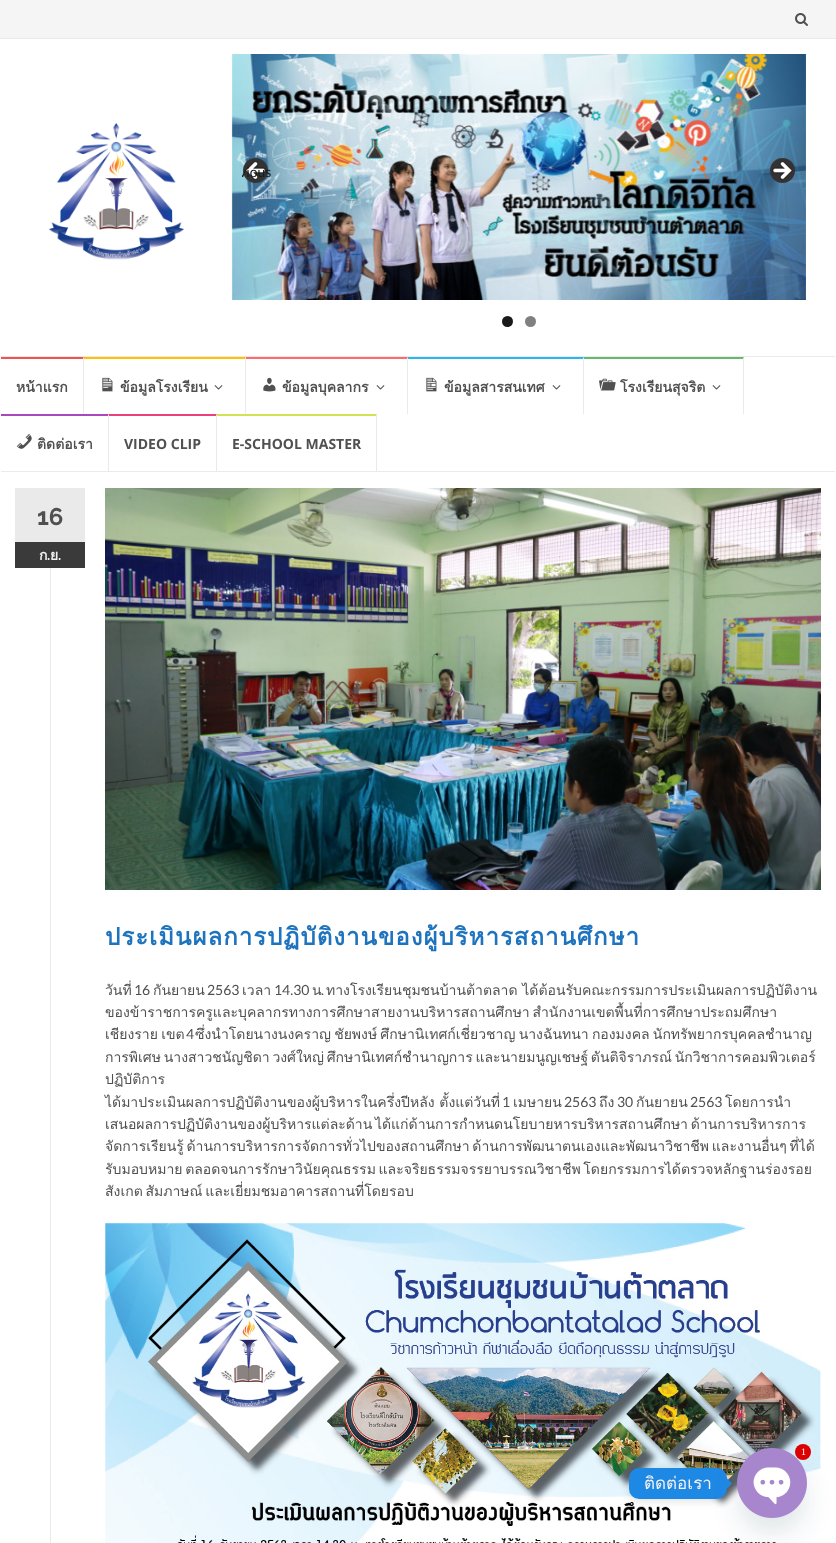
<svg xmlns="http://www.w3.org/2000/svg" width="836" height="1543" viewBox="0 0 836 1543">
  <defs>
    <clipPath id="clip1"><rect x="242" y="157" width="30" height="30"/></clipPath>
    <filter id="blur1" x="-50%" y="-200%" width="200%" height="500%"><feGaussianBlur stdDeviation="4"/></filter>
    <filter id="blur2" x="-50%" y="-200%" width="200%" height="500%"><feGaussianBlur stdDeviation="12"/></filter>
  </defs>
  <rect width="100%" height="100%" fill="#ffffff"/>
  <rect x="0" y="0" width="836" height="38" fill="#f5f5f5"/>
  <rect x="0" y="38" width="836" height="1" fill="#eaeaea"/>
  <image x="795" y="13" width="13" height="13" href="img1.png"/>
  <image x="49" y="123" width="135" height="137" href="img2.png"/>
  <image x="231" y="54" width="575" height="246" href="img3.png"/>
  <image x="243" y="158" width="25" height="25" href="img4.png"/>
  <g clip-path="url(#clip1)">
    <text x="239" y="177" font-family="Lato" font-size="14" fill="#191b1c">vious</text>
  </g>
  <image x="770" y="158" width="25" height="25" href="img5.png"/>
  <circle cx="507.5" cy="321.5" r="5.5" fill="#1a1a1a"/>
  <circle cx="530.5" cy="321.5" r="5.5" fill="#808080"/>
  <rect x="1" y="356" width="834" height="1" fill="#eaeaea"/>
  <rect x="1" y="471" width="834" height="1" fill="#eaeaea"/>
  <path d="M1 357H84L83 359H1Z" fill="#ef5350"/>
  <path d="M84 357V414H83V359Z" fill="#eaeaea"/>
  <text x="16" y="392" font-family="Loma" font-size="14" font-weight="bold" fill="#505050">หน้าแรก</text>
  <path d="M84 357H246L245 359H84Z" fill="#ffc107"/>
  <path d="M246 357V414H245V359Z" fill="#eaeaea"/>
  <image x="102" y="377" width="11" height="15" href="img6.png"/>
  <text x="120" y="392" font-family="Loma" font-size="14" font-weight="bold" fill="#505050">ข้อมูลโรงเรียน</text>
  <image x="214" y="385" width="9" height="5" href="img7.png"/>
  <path d="M246 357H408L407 359H246Z" fill="#ff6b6b"/>
  <path d="M408 357V414H407V359Z" fill="#eaeaea"/>
  <image x="263" y="377" width="13" height="15" href="img8.png"/>
  <text x="282" y="392" font-family="Loma" font-size="14" font-weight="bold" fill="#505050">ข้อมูลบุคลากร</text>
  <image x="376" y="385" width="9" height="5" href="img7.png"/>
  <path d="M408 357H584L583 359H408Z" fill="#29b6f6"/>
  <path d="M584 357V414H583V359Z" fill="#eaeaea"/>
  <image x="426" y="377" width="11" height="15" href="img9.png"/>
  <text x="444" y="392" font-family="Loma" font-size="14" font-weight="bold" fill="#505050">ข้อมูลสารสนเทศ</text>
  <image x="552" y="385" width="9" height="5" href="img7.png"/>
  <path d="M584 357H744L743 359H584Z" fill="#66bb6a"/>
  <path d="M744 357V414H743V359Z" fill="#eaeaea"/>
  <image x="599" y="378" width="17" height="13" href="img10.png"/>
  <text x="620" y="392" font-family="Loma" font-size="14" font-weight="bold" fill="#505050">โรงเรียนสุจริต</text>
  <image x="712" y="385" width="9" height="5" href="img7.png"/>
  <path d="M1 414H109L108 416H1Z" fill="#ab47bc"/>
  <path d="M109 414V471H108V416Z" fill="#eaeaea"/>
  <image x="16" y="434" width="16" height="15" href="img11.png"/>
  <text x="37" y="449" font-family="Loma" font-size="14" font-weight="bold" fill="#505050">ติดต่อเรา</text>
  <path d="M109 414H217L216 416H109Z" fill="#ec407a"/>
  <path d="M217 414V471H216V416Z" fill="#eaeaea"/>
  <text x="124" y="449" font-family="Open Sans" font-size="14" font-weight="bold" fill="#505050">VIDEO CLIP</text>
  <path d="M217 414H377L376 416H217Z" fill="#d4e157"/>
  <path d="M377 414V471H376V416Z" fill="#eaeaea"/>
  <text x="232" y="449" font-family="Open Sans" font-size="14" font-weight="bold" fill="#505050">E-SCHOOL MASTER</text>
  <rect x="15" y="488" width="70" height="54" fill="#eaeaea"/>
  <text x="37" y="525" font-family="Raleway" font-size="24" font-weight="bold" fill="#505050">16</text>
  <rect x="15" y="542" width="70" height="26" fill="#3a3a3a"/>
  <text x="39" y="560" font-family="Loma" font-size="14" font-weight="bold" fill="#f1f1f1">ก</text>
  <text x="47" y="560" font-family="Raleway" font-size="14" font-weight="bold" fill="#f1f1f1">.</text>
  <text x="50" y="560" font-family="Loma" font-size="14" font-weight="bold" fill="#f1f1f1">ย</text>
  <text x="58" y="560" font-family="Raleway" font-size="14" font-weight="bold" fill="#f1f1f1">.</text>
  <image x="105" y="488" width="716" height="402" href="img12.png"/>
  <rect x="50" y="568" width="1" height="975" fill="#eaeaea"/>
  <text x="105" y="945" font-family="Loma" font-size="24" font-weight="bold" letter-spacing="1" fill="#1e73be">ประเมินผลการปฏิบัติงานของผู้บริหารสถานศึกษา</text>
  <text x="105" y="995" font-family="Loma" font-size="14" fill="#505050">วันที่</text>
  <text x="134" y="995" font-family="Lato" font-size="14" fill="#505050">16</text>
  <text x="153" y="995" font-family="Loma" font-size="14" fill="#505050">กันยายน</text>
  <text x="207" y="995" font-family="Lato" font-size="14" fill="#505050">2563</text>
  <text x="242" y="995" font-family="Loma" font-size="14" fill="#505050">เวลา</text>
  <text x="274" y="995" font-family="Lato" font-size="14" fill="#505050">14.30</text>
  <text x="312" y="995" font-family="Loma" font-size="14" fill="#505050">น</text>
  <text x="321" y="995" font-family="Lato" font-size="14" fill="#505050">.</text>
  <text x="326" y="995" font-family="Loma" font-size="14" fill="#505050">ทางโรงเรียนชุมชนบ้านต้าตลาด ได้ต้อนรับคณะกรรมการประเมินผลการปฏิบัติงาน</text>
  <text x="105" y="1017" word-spacing="-2" font-family="Loma" font-size="14" fill="#505050">ของข้าราชการครูและบุคลากรทางการศึกษาสายงานบริหารสถานศึกษา สำนักงานเขตพื้นที่การศึกษาประถมศึกษา</text>
  <text x="105" y="1039" word-spacing="-1.5" font-family="Loma" font-size="14" fill="#505050">เชียงราย เขต</text>
  <text x="186" y="1039" font-family="Lato" font-size="14" fill="#505050">4</text>
  <text x="195" y="1039" word-spacing="-1.5" font-family="Loma" font-size="14" fill="#505050">ซึ่งนำโดยนางนงคราญ ชัยพงษ์ ศึกษานิเทศก์เชี่ยวชาญ นางฉันทนา กองมงคล นักทรัพยากรบุคคลชำนาญ</text>
  <text x="105" y="1062" word-spacing="-2" font-family="Loma" font-size="14" fill="#505050">การพิเศษ นางสาวชนัญชิดา วงศ์ใหญ่ ศึกษานิเทศก์ชำนาญการ และนายมนูญเชษฐ์ ตันติจิราภรณ์ นักวิชาการคอมพิวเตอร์</text>
  <text x="105" y="1084" font-family="Loma" font-size="14" fill="#505050">ปฏิบัติการ</text>
  <text x="105" y="1107" font-family="Loma" font-size="14" fill="#505050">ได้มาประเมินผลการปฏิบัติงานของผู้บริหารในครึ่งปีหลัง ตั้งแต่วันที่</text>
  <text x="502" y="1107" font-family="Lato" font-size="14" fill="#505050">1</text>
  <text x="513" y="1107" font-family="Loma" font-size="14" fill="#505050">เมษายน</text>
  <text x="564" y="1107" font-family="Lato" font-size="14" fill="#505050">2563</text>
  <text x="599" y="1107" font-family="Loma" font-size="14" fill="#505050">ถึง</text>
  <text x="617" y="1107" font-family="Lato" font-size="14" fill="#505050">30</text>
  <text x="636" y="1107" font-family="Loma" font-size="14" fill="#505050">กันยายน</text>
  <text x="690" y="1107" font-family="Lato" font-size="14" fill="#505050">2563</text>
  <text x="725" y="1107" font-family="Loma" font-size="14" fill="#505050">โดยการนำ</text>
  <text x="105" y="1129" word-spacing="-2" font-family="Loma" font-size="14" fill="#505050">เสนอผลการปฏิบัติงานของผู้บริหารแต่ละด้าน ได้แก่ด้านการกำหนดนโยบายหารบริหารสถานศึกษา ด้านการบริหารการ</text>
  <text x="105" y="1151" word-spacing="-2" font-family="Loma" font-size="14" fill="#505050">จัดการเรียนรู้ ด้านการบริหารการจัดการทั่วไปของสถานศึกษา ด้านการพัฒนาตนเองและพัฒนาวิชาชีพ และงานอื่นๆ ที่ได้</text>
  <text x="105" y="1174" word-spacing="-2" font-family="Loma" font-size="14" fill="#505050">รับมอบหมาย ตลอดจนการรักษาวินัยคุณธรรม และจริยธรรมจรรยาบรรณวิชาชีพ โดยกรรมการได้ตรวจหลักฐานร่องรอย</text>
  <text x="105" y="1196" word-spacing="-2" font-family="Loma" font-size="14" fill="#505050">สังเกต สัมภาษณ์ และเยี่ยมชมอาคารสถานที่โดยรอบ</text>
  <image x="105" y="1223" width="716" height="320" href="img13.png"/>
  <rect x="629" y="1469" width="98" height="31" rx="10" fill="#000000" fill-opacity="0.15" filter="url(#blur1)"/>
  <rect x="629" y="1468" width="98" height="31" rx="10" fill="#1e88e5"/>
  <path d="M727 1488.5V1478.5L732 1483.5Z" fill="#1e88e5"/>
  <rect x="737" y="1464" width="70" height="70" rx="35" fill="#49687e" fill-opacity="0.16" filter="url(#blur2)"/>
  <image x="737" y="1448" width="70" height="70" href="img14.png"/>
  <circle cx="803" cy="1452" r="8" fill="#dd0000"/>
  <text x="801" y="1455" font-family="Liberation Serif" font-size="10" fill="#ffffff">1</text>
  <text x="644" y="1489" font-family="Loma" font-size="17" fill="#f7f1f1">ติดต่อเรา</text>
</svg>
